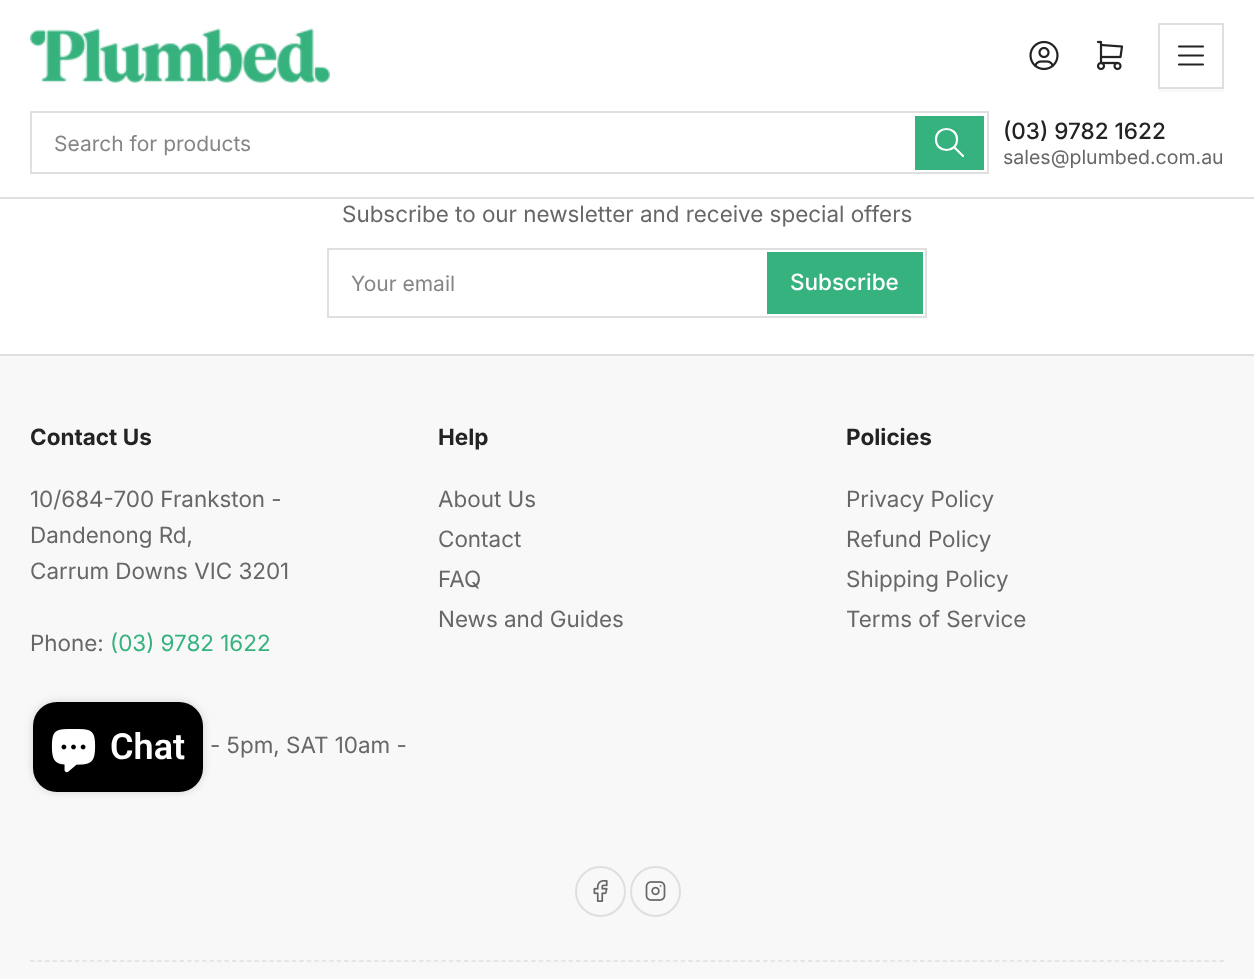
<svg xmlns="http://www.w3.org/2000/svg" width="1254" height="979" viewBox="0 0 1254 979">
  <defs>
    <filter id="blur1" x="-50%" y="-200%" width="200%" height="500%"><feGaussianBlur stdDeviation="4"/></filter>
  </defs>
  <rect width="100%" height="100%" fill="#ffffff"/>
  <rect x="0" y="197" width="1254" height="2" fill="#dfdfdf"/>
  <image x="30" y="28" width="300" height="55" href="img1.png"/>
  <image x="1029" y="40" width="30" height="31" href="img2.png"/>
  <image x="1096" y="40" width="28" height="31" href="img3.png"/>
  <rect x="1158" y="89" width="66" height="3" fill="#f9f9f9"/>
  <rect x="1159" y="24" width="64" height="64" fill="none" stroke="#dfdfdf" stroke-width="2"/>
  <path d="M1179 46.5H1203M1179 55.5H1203M1179 64.5H1203" fill="none" stroke="#232323" stroke-width="2.2" stroke-linecap="round" stroke-linejoin="round"/>
  <rect x="31" y="112" width="957" height="61" fill="none" stroke="#dfdfdf" stroke-width="2"/>
  <text x="54" y="151" font-family="'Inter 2'" font-size="21" fill="#858585">Search for products</text>
  <rect x="916" y="117" width="67" height="52" fill="none" stroke="#36b27e" stroke-width="2"/>
  <rect x="917" y="118" width="65" height="50" fill="#36b27e"/>
  <path d="M936 139.5C936 153.5 957 153.5 957 139.5C957 125.5 936 125.5 936 139.5M963 156L954 147" fill="none" stroke="#ffffff" stroke-width="2.2" stroke-linecap="round" stroke-linejoin="round"/>
  <text x="1003" y="139" font-family="Inter" font-size="22.5" font-weight="500" fill="#232323">(03) 9782 1622</text>
  <text x="1003" y="164" font-family="'Inter 2'" font-size="19.5" fill="#676767">sales@plumbed.com.au</text>
  <rect x="0" y="354" width="1254" height="2" fill="#dfdfdf"/>
  <text x="342" y="222" font-family="Inter" font-size="22.5" fill="#676767">Subscribe to our newsletter and receive special offers</text>
  <rect x="328" y="249" width="598" height="68" fill="none" stroke="#dfdfdf" stroke-width="2"/>
  <text x="351" y="291" font-family="'Inter 2'" font-size="21" fill="#858585">Your email</text>
  <rect x="768" y="253" width="154" height="60" fill="none" stroke="#36b27e" stroke-width="2"/>
  <rect x="769" y="254" width="152" height="58" fill="#36b27e"/>
  <text x="790" y="290" font-family="Inter" font-size="22.5" font-weight="500" fill="#ffffff">Subscribe</text>
  <rect x="0" y="356" width="1254" height="623" fill="#f8f8f8"/>
  <text x="30" y="445" font-family="Inter" font-size="22.5" font-weight="bold" fill="#232323">Contact Us</text>
  <text x="30" y="507" font-family="Inter" font-size="22.5" fill="#676767">10/684-700 Frankston -</text>
  <text x="30" y="543" font-family="Inter" font-size="22.5" fill="#676767">Dandenong Rd,</text>
  <text x="30" y="579" font-family="Inter" font-size="22.5" fill="#676767">Carrum Downs VIC 3201</text>
  <text x="30" y="651" font-family="Inter" font-size="22.5" fill="#676767">Phone:</text>
  <text x="110" y="651" font-family="Inter" font-size="22.5" fill="#36b27e">(03) 9782 1622</text>
  <text x="210" y="753" font-family="Inter" font-size="22.5" fill="#676767">- 5pm, SAT 10am -</text>
  <text x="438" y="445" font-family="Inter" font-size="22.5" font-weight="bold" fill="#232323">Help</text>
  <text x="438" y="507" font-family="Inter" font-size="22.5" fill="#676767">About Us</text>
  <text x="438" y="547" font-family="Inter" font-size="22.5" fill="#676767">Contact</text>
  <text x="438" y="587" font-family="Inter" font-size="22.5" fill="#676767">FAQ</text>
  <text x="438" y="627" font-family="Inter" font-size="22.5" fill="#676767">News and Guides</text>
  <text x="846" y="445" font-family="Inter" font-size="22.5" font-weight="bold" fill="#232323">Policies</text>
  <text x="846" y="507" font-family="Inter" font-size="22.5" fill="#676767">Privacy Policy</text>
  <text x="846" y="547" font-family="Inter" font-size="22.5" fill="#676767">Refund Policy</text>
  <text x="846" y="587" font-family="Inter" font-size="22.5" fill="#676767">Shipping Policy</text>
  <text x="846" y="627" font-family="Inter" font-size="22.5" fill="#676767">Terms of Service</text>
  <circle cx="600.5" cy="891.5" r="24.5" fill="none" stroke="#dfdfdf" stroke-width="2"/>
  <image x="593" y="880" width="15" height="22" href="img4.png"/>
  <circle cx="655.5" cy="891.5" r="24.5" fill="none" stroke="#dfdfdf" stroke-width="2"/>
  <image x="645" y="881" width="21" height="20" href="img5.png"/>
  <path d="M30 961H1224" fill="none" stroke="#dfdfdf" stroke-width="1.5" stroke-dasharray="4.5 2.98"/>
  <rect x="33" y="702" width="170" height="90" rx="24" fill="#000000" fill-opacity="0.15" filter="url(#blur1)"/>
  <rect x="33" y="702" width="170" height="90" rx="24" fill="#000000"/>
  <image x="51" y="729" width="45" height="44" href="img6.png"/>
  <text x="110" y="759" font-family="Roboto" font-size="36" font-weight="600" fill="#ffffff">Chat</text>
</svg>
